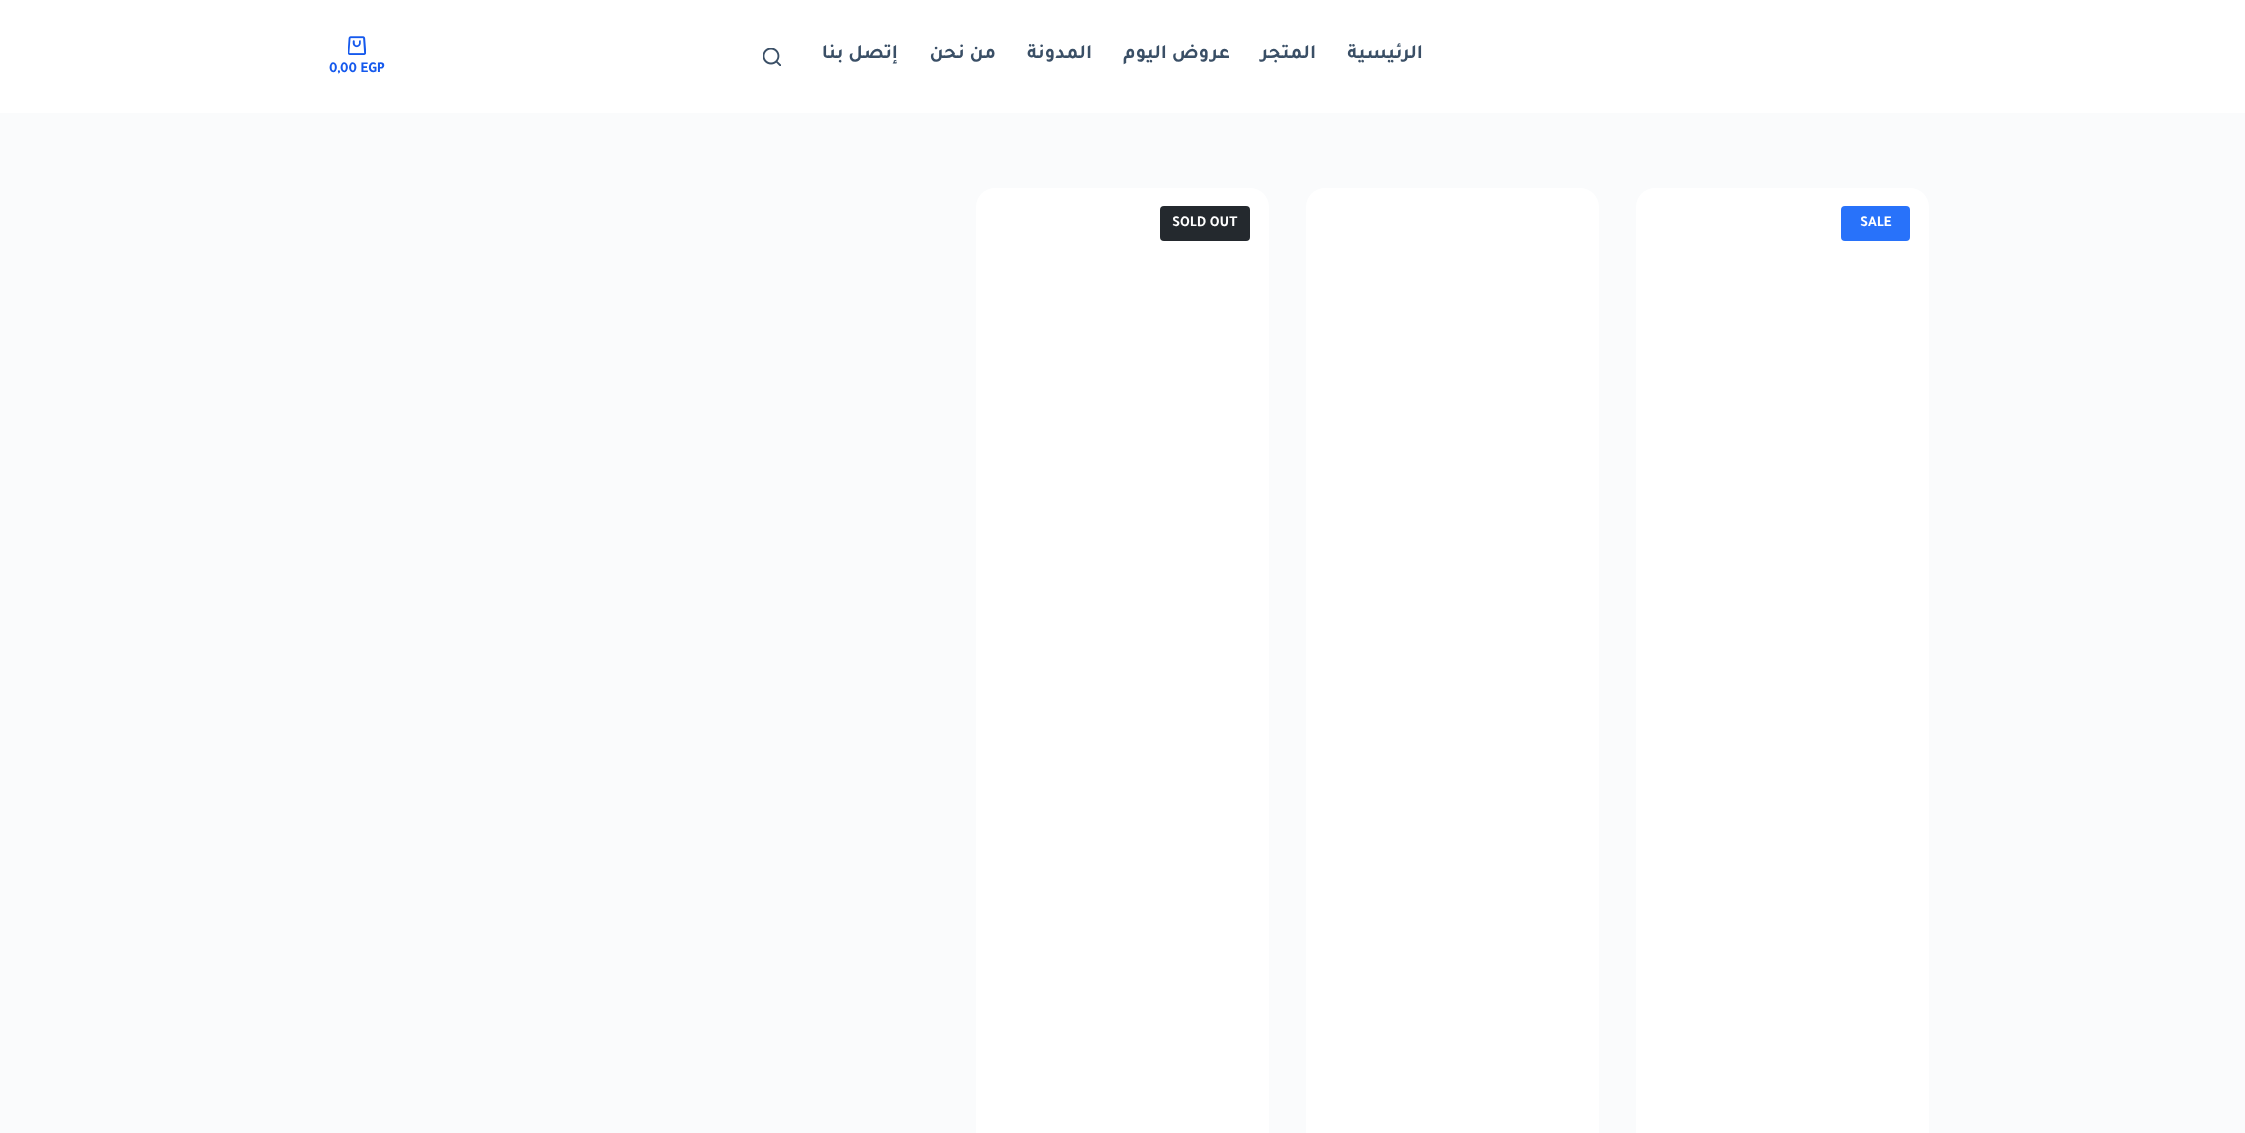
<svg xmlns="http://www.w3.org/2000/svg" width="2245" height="1133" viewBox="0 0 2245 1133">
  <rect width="100%" height="100%" fill="#fafbfc"/>
  <rect x="0" y="0" width="2245" height="113" fill="#ffffff"/>
  <text x="1423" y="58" font-family="Tajawal" font-size="20" font-weight="bold" direction="rtl" fill="#3a4f66">الرئيسية</text>
  <text x="1316" y="58" font-family="Tajawal" font-size="20" font-weight="bold" direction="rtl" fill="#3a4f66">المتجر</text>
  <text x="1230" y="58" font-family="Tajawal" font-size="20" font-weight="bold" direction="rtl" fill="#3a4f66">عروض اليوم</text>
  <text x="1092" y="58" font-family="Tajawal" font-size="20" font-weight="bold" direction="rtl" fill="#3a4f66">المدونة</text>
  <text x="996" y="58" font-family="Tajawal" font-size="20" font-weight="bold" direction="rtl" fill="#3a4f66">من نحن</text>
  <text x="898" y="58" font-family="Tajawal" font-size="20" font-weight="bold" direction="rtl" fill="#3a4f66">إتصل بنا</text>
  <image x="763" y="48" width="18" height="18" href="img1.png"/>
  <image x="348" y="36" width="18" height="19" href="img2.png"/>
  <text x="329" y="72" font-family="Tajawal" font-size="15" font-weight="bold" fill="#1559ed">0,00 EGP</text>
  <rect x="1636" y="188" width="293" height="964" rx="19" fill="#ffffff"/>
  <rect x="1841" y="206" width="69" height="35" rx="4" fill="#2872fa"/>
  <text x="1860" y="226" font-family="Tajawal" font-size="15" font-weight="bold" fill="#ffffff">SALE</text>
  <rect x="1306" y="188" width="293" height="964" rx="19" fill="#ffffff"/>
  <rect x="976" y="188" width="293" height="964" rx="19" fill="#ffffff"/>
  <rect x="1160" y="206" width="90" height="35" rx="4" fill="#24292e"/>
  <text x="1172" y="226" font-family="Tajawal" font-size="15" font-weight="bold" fill="#ffffff">SOLD OUT</text>
</svg>
